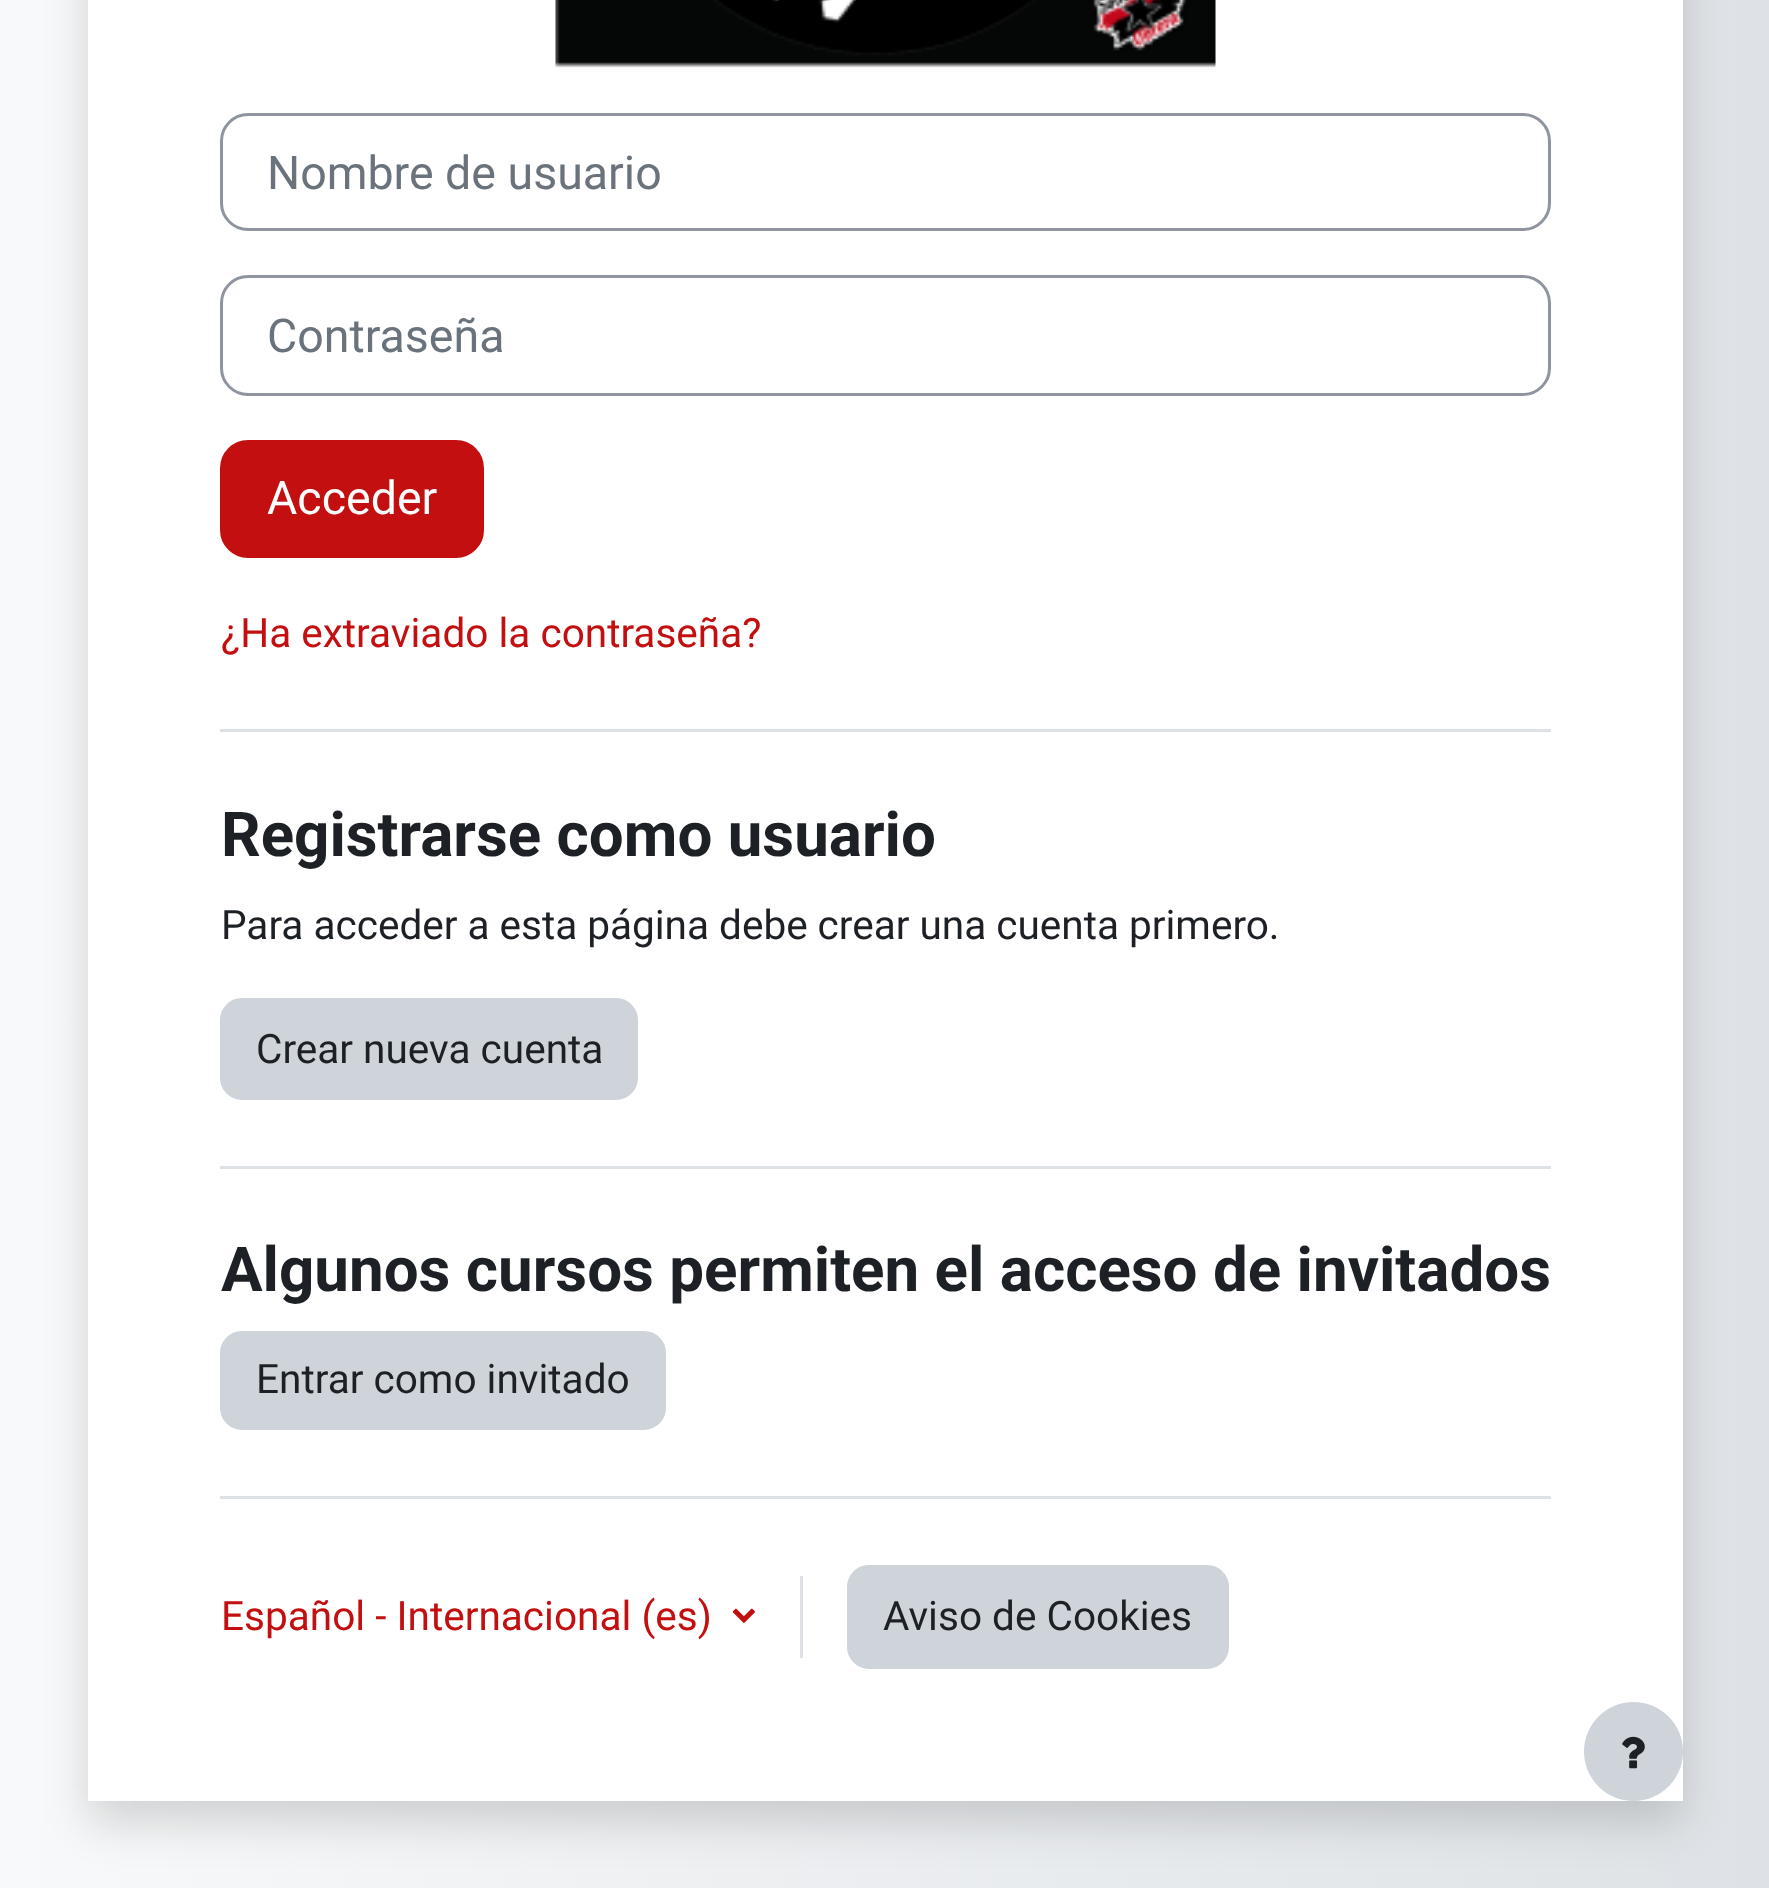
<svg xmlns="http://www.w3.org/2000/svg" width="1769" height="1888" viewBox="0 0 1769 1888">
  <defs>
    <linearGradient id="g1" gradientUnits="userSpaceOnUse" x1="0" y1="594" x2="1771" y2="594"><stop offset="0" stop-color="#f8f9fa"/><stop offset="1" stop-color="#dee2e6"/></linearGradient>
    <filter id="blur1" x="-50%" y="-200%" width="200%" height="500%"><feGaussianBlur stdDeviation="22"/></filter>
  </defs>
  <rect width="100%" height="100%" fill="#ffffff"/>
  <rect x="0" y="0" width="1769" height="1888" fill="url(#g1)"/>
  <rect x="88" y="-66" width="1595" height="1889" fill="#000000" fill-opacity="0.15" filter="url(#blur1)"/>
  <rect x="88" y="0" width="1595" height="1801" fill="#ffffff"/>
  <image x="555" y="0" width="661" height="68" href="img1.png"/>
  <rect x="221.5" y="114.5" width="1328" height="115" rx="26.5" fill="none" stroke="#8f959e" stroke-width="3"/>
  <text x="267" y="189" font-family="Roboto" font-size="46.5" fill="#6a737b">Nombre de usuario</text>
  <rect x="221.5" y="276.5" width="1328" height="118" rx="26.5" fill="none" stroke="#8f959e" stroke-width="3"/>
  <text x="267" y="352" font-family="Roboto" font-size="46.5" fill="#6a737b">Contraseña</text>
  <rect x="221.5" y="441.5" width="261" height="115" rx="26.5" fill="#c30f0f" stroke="#c30f0f" stroke-width="3"/>
  <text x="267" y="514" font-family="Roboto" font-size="46.5" fill="#ffffff">Acceder</text>
  <text x="221" y="647" font-family="Roboto" font-size="40.55" fill="#c30f0f">¿Ha extraviado la contraseña?</text>
  <rect x="220" y="729" width="1331" height="3" fill="#dee2e6"/>
  <text x="221" y="856" font-family="Roboto" font-size="61.9" font-weight="bold" fill="#1d2125">Registrarse como usuario</text>
  <text x="221" y="939" word-spacing="-0.1" font-family="Roboto" font-size="40.55" fill="#1d2125">Para acceder a esta página debe crear una cuenta primero.</text>
  <rect x="221.5" y="999.5" width="415" height="99" rx="20.5" fill="#ced4da" stroke="#ced4da" stroke-width="3"/>
  <text x="256" y="1063" font-family="Roboto" font-size="40.55" fill="#1d2125">Crear nueva cuenta</text>
  <rect x="220" y="1166" width="1331" height="3" fill="#dee2e6"/>
  <text x="221" y="1291" font-family="Roboto" font-size="61.9" font-weight="bold" fill="#1d2125">Algunos cursos permiten el acceso de invitados</text>
  <rect x="221.5" y="1332.5" width="443" height="96" rx="20.5" fill="#ced4da" stroke="#ced4da" stroke-width="3"/>
  <text x="256" y="1393" font-family="Roboto" font-size="40.55" fill="#1d2125">Entrar como invitado</text>
  <rect x="220" y="1496" width="1331" height="3" fill="#dee2e6"/>
  <text x="221" y="1630" font-family="Roboto" font-size="40.55" fill="#c30f0f">Español - Internacional (es)</text>
  <image x="732" y="1608" width="23" height="15" href="img2.png"/>
  <rect x="800" y="1576" width="3" height="82" fill="#dee2e6"/>
  <rect x="848.5" y="1566.5" width="379" height="101" rx="20.5" fill="#ced4da" stroke="#ced4da" stroke-width="3"/>
  <text x="883" y="1630" font-family="Roboto" font-size="40.55" fill="#1d2125">Aviso de Cookies</text>
  <circle cx="1633.5" cy="1751.5" r="49.5" fill="#ced4da"/>
  <image x="1622" y="1736" width="23" height="33" href="img3.png"/>
</svg>
